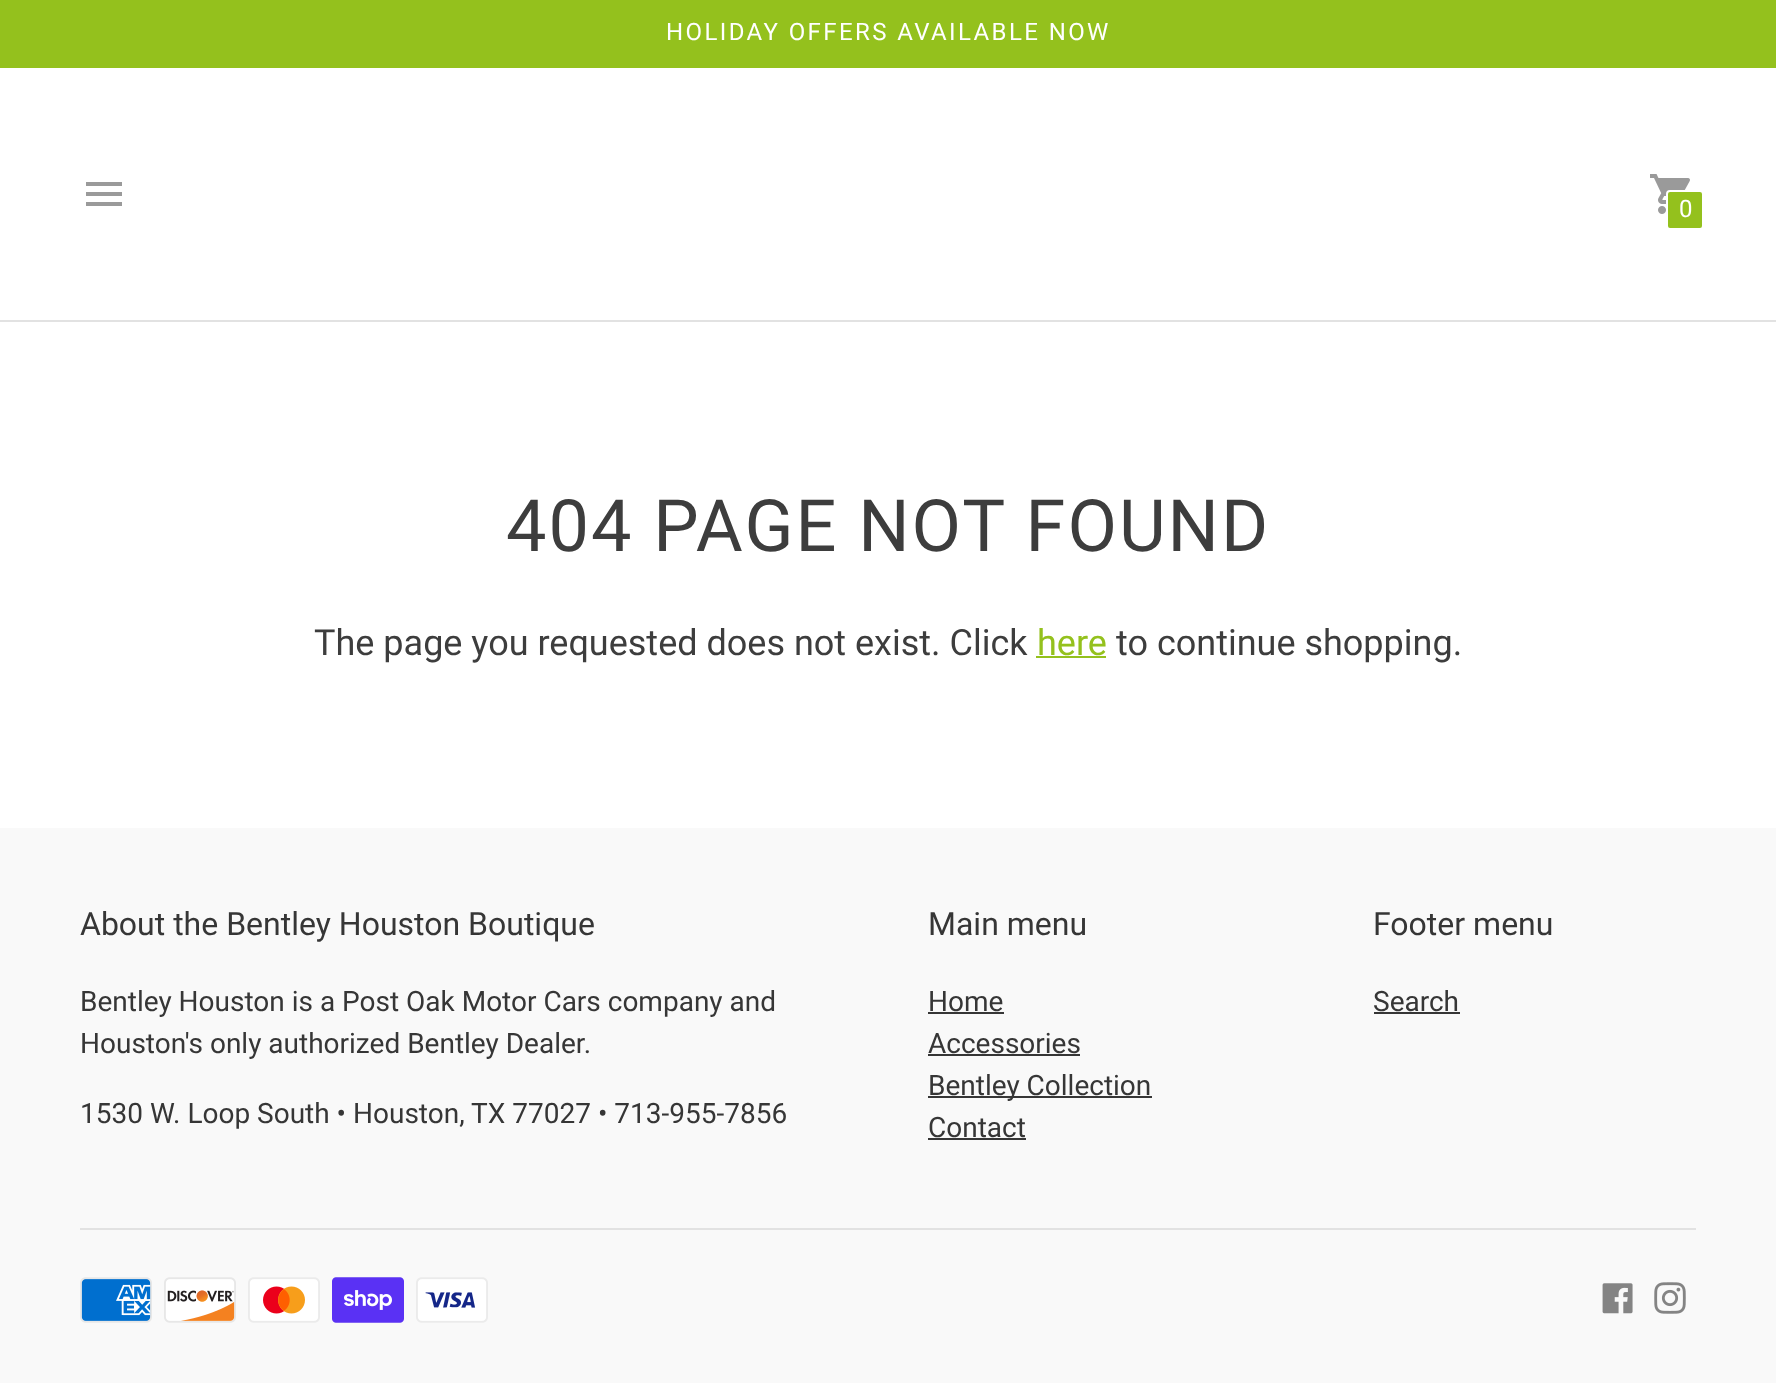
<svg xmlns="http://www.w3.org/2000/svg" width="1776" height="1383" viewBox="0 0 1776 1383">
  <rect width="100%" height="100%" fill="#ffffff"/>
  <rect x="0" y="0" width="1776" height="68" fill="#94c11d"/>
  <text x="666" y="40" font-family="Roboto" font-size="24" letter-spacing="2.4" fill="#ffffff">HOLIDAY OFFERS AVAILABLE NOW</text>
  <rect x="0" y="320" width="1776" height="2" fill="#e2e2e2"/>
  <path d="M86 206H122V202H86ZM86 196H122V192H86ZM86 182V186H122V182Z" fill="#9a9a9a"/>
  <image x="1650" y="174" width="40" height="40" href="img1.png"/>
  <rect x="1667" y="191" width="36" height="38" rx="3" fill="#94c11d" stroke="#ffffff" stroke-width="2"/>
  <text x="1679" y="217" font-family="Roboto" font-size="24" fill="#ffffff">0</text>
  <text x="506" y="551" font-family="Roboto" font-size="72" letter-spacing="2" fill="#3d3d3d">404 PAGE NOT FOUND</text>
  <text x="314" y="655" font-family="Roboto" font-size="36" fill="#3d3d3d">The page you requested does not exist. Click</text>
  <text x="1037" y="655" font-family="Roboto" font-size="36" fill="#94c11d">here</text>
  <rect x="1036" y="656" width="70" height="2" fill="#94c11d"/>
  <text x="1116" y="655" font-family="Roboto" font-size="36" fill="#3d3d3d">to continue shopping.</text>
  <rect x="0" y="828" width="1776" height="555" fill="#f9f9f9"/>
  <text x="80" y="935" font-family="Roboto" font-size="32" fill="#363636">About the Bentley Houston Boutique</text>
  <text x="80" y="1011" font-family="Roboto" font-size="28" fill="#363636">Bentley Houston is a Post Oak Motor Cars company and</text>
  <text x="80" y="1053" font-family="Roboto" font-size="28" fill="#363636">Houston's only authorized Bentley Dealer.</text>
  <text x="80" y="1123" font-family="Roboto" font-size="28" fill="#363636">1530 W. Loop South • Houston, TX 77027 • 713-955-7856</text>
  <text x="928" y="935" font-family="Roboto" font-size="32" fill="#363636">Main menu</text>
  <text x="928" y="1011" font-family="Roboto" font-size="28" fill="#363636">Home</text>
  <rect x="928" y="1012" width="76" height="2" fill="#363636"/>
  <text x="928" y="1053" font-family="Roboto" font-size="28" fill="#363636">Accessories</text>
  <rect x="928" y="1054" width="152" height="2" fill="#363636"/>
  <rect x="928" y="1096" width="224" height="2" fill="#363636"/>
  <text x="928" y="1095" font-family="Roboto" font-size="28" fill="#363636">Bentley Collection</text>
  <text x="928" y="1137" font-family="Roboto" font-size="28" fill="#363636">Contact</text>
  <rect x="928" y="1138" width="98" height="2" fill="#363636"/>
  <text x="1373" y="935" font-family="Roboto" font-size="32" fill="#363636">Footer menu</text>
  <text x="1373" y="1011" font-family="Roboto" font-size="28" fill="#363636">Search</text>
  <rect x="1374" y="1012" width="86" height="2" fill="#363636"/>
  <rect x="80" y="1228" width="1616" height="2" fill="#e2e2e2"/>
  <image x="80" y="1277" width="72" height="46" href="img2.png"/>
  <image x="164" y="1277" width="72" height="46" href="img3.png"/>
  <image x="248" y="1277" width="72" height="46" href="img4.png"/>
  <image x="332" y="1277" width="72" height="46" href="img5.png"/>
  <image x="416" y="1277" width="72" height="46" href="img6.png"/>
  <image x="1602" y="1283" width="31" height="31" href="img7.png"/>
  <image x="1654" y="1282" width="32" height="32" href="img8.png"/>
</svg>
